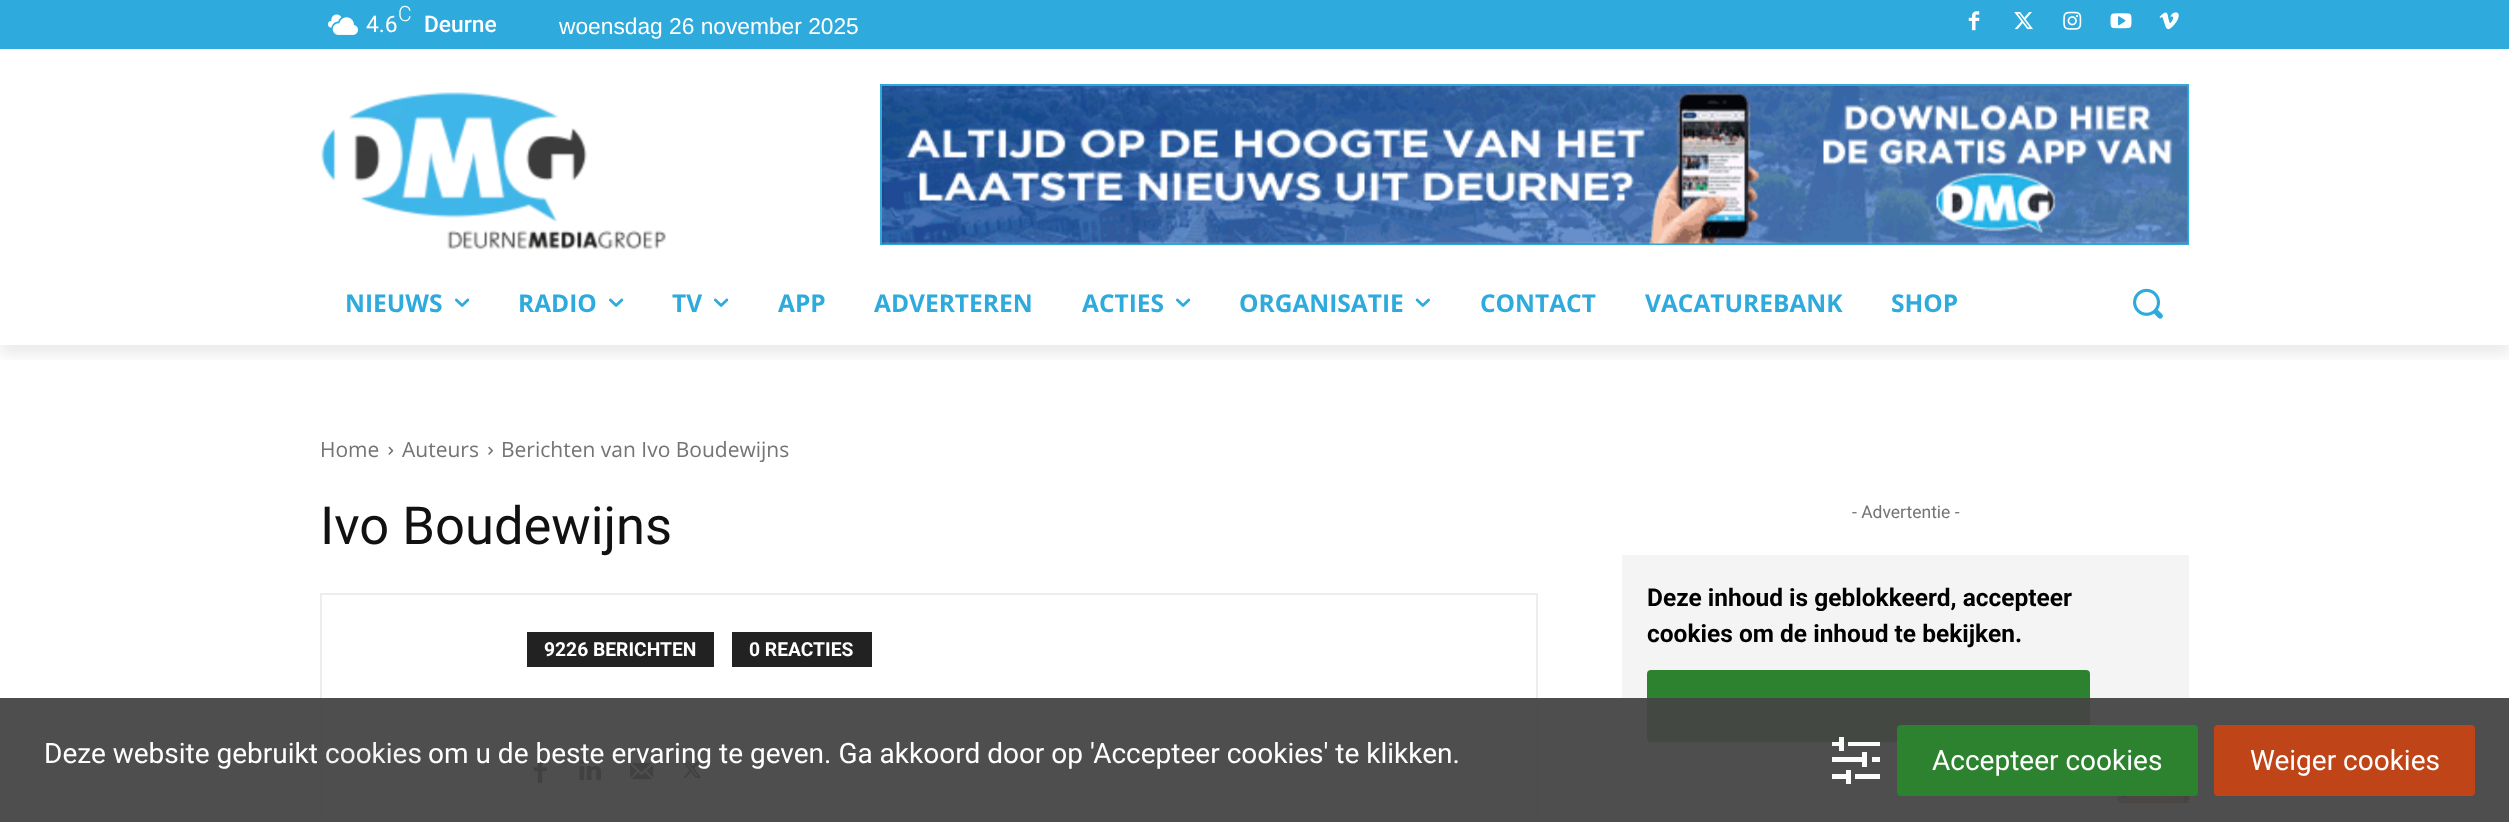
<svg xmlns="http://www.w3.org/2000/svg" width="2509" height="822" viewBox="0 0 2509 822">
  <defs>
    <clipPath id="clip1"><rect x="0" y="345" width="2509" height="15"/></clipPath>
    <filter id="blur1" x="-50%" y="-200%" width="200%" height="500%"><feGaussianBlur stdDeviation="7"/></filter>
  </defs>
  <rect width="100%" height="100%" fill="#ffffff"/>
  <rect x="0" y="0" width="2509" height="49" fill="#2eaadc"/>
  <image x="327" y="14" width="31" height="21" href="img1.png"/>
  <image x="1968" y="11" width="12" height="20" href="img2.png"/>
  <image x="2014" y="12" width="19" height="18" href="img3.png"/>
  <image x="2063" y="11" width="19" height="19" href="img4.png"/>
  <image x="2110" y="13" width="22" height="16" href="img5.png"/>
  <image x="2159" y="12" width="20" height="18" href="img6.png"/>
  <image x="321" y="92" width="345" height="158" href="img7.png"/>
  <rect x="881" y="85" width="1307" height="159" fill="none" stroke="#2eaadc" stroke-width="2"/>
  <image x="882" y="86" width="1306" height="158" href="img8.png"/>
  <g clip-path="url(#clip1)">
    <rect x="0" y="11" width="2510" height="344" fill="#000000" fill-opacity="0.08" filter="url(#blur1)"/>
  </g>
  <text x="366" y="32" font-family="Roboto" font-size="22.75" fill="#ffffff">4.6</text>
  <text x="398" y="21" font-family="Roboto" font-size="21" font-weight="300" fill="#ffffff">C</text>
  <text x="424" y="32" font-family="Roboto" font-size="22.75" font-weight="500" fill="#ffffff">Deurne</text>
  <text x="559" y="34" font-family="Liberation Sans" font-size="22.75" fill="#ffffff">woensdag 26 november 2025</text>
  <text x="345" y="312" font-family="Open Sans" font-size="24.5" font-weight="bold" fill="#2eaadc">NIEUWS</text>
  <image x="455" y="298" width="15" height="9" href="img9.png"/>
  <text x="518" y="312" font-family="Open Sans" font-size="24.5" font-weight="bold" fill="#2eaadc">RADIO</text>
  <image x="609" y="298" width="15" height="9" href="img9.png"/>
  <text x="672" y="312" font-family="Open Sans" font-size="24.5" font-weight="bold" fill="#2eaadc">TV</text>
  <image x="714" y="298" width="15" height="9" href="img9.png"/>
  <text x="778" y="312" font-family="Open Sans" font-size="24.5" font-weight="bold" fill="#2eaadc">APP</text>
  <text x="874" y="312" font-family="Open Sans" font-size="24.5" font-weight="bold" fill="#2eaadc">ADVERTEREN</text>
  <text x="1082" y="312" font-family="Open Sans" font-size="24.5" font-weight="bold" fill="#2eaadc">ACTIES</text>
  <image x="1176" y="298" width="15" height="9" href="img9.png"/>
  <text x="1239" y="312" font-family="Open Sans" font-size="24.5" font-weight="bold" fill="#2eaadc">ORGANISATIE</text>
  <image x="1415" y="298" width="15" height="9" href="img10.png"/>
  <text x="1480" y="312" font-family="Open Sans" font-size="24.5" font-weight="bold" fill="#2eaadc">CONTACT</text>
  <text x="1645" y="312" font-family="Open Sans" font-size="24.5" font-weight="bold" fill="#2eaadc">VACATUREBANK</text>
  <text x="1891" y="312" font-family="Open Sans" font-size="24.5" font-weight="bold" fill="#2eaadc">SHOP</text>
  <image x="2133" y="288" width="30" height="31" href="img11.png"/>
  <text x="320" y="457" font-family="Open Sans" font-size="21" fill="#747474">Home</text>
  <image x="388" y="446" width="6" height="9" href="img12.png"/>
  <text x="402" y="457" font-family="Open Sans" font-size="21" fill="#747474">Auteurs</text>
  <image x="488" y="446" width="5" height="9" href="img13.png"/>
  <text x="501" y="457" font-family="Open Sans" font-size="21" fill="#747474">Berichten van Ivo Boudewijns</text>
  <text x="320" y="544" font-family="Roboto" font-size="52.5" fill="#111111">Ivo Boudewijns</text>
  <rect x="321" y="594" width="1216" height="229" fill="none" stroke="#ededed" stroke-width="2"/>
  <rect x="527" y="632" width="187" height="35" fill="#222222"/>
  <text x="544" y="656" font-family="Roboto" font-size="19.25" font-weight="bold" fill="#ffffff">9226 BERICHTEN</text>
  <rect x="732" y="632" width="140" height="35" fill="#222222"/>
  <text x="749" y="656" font-family="Roboto" font-size="19.25" font-weight="bold" fill="#ffffff">0 REACTIES</text>
  <image x="533" y="759" width="14" height="24" href="img14.png"/>
  <image x="579" y="759" width="22" height="22" href="img15.png"/>
  <image x="630" y="762" width="24" height="18" href="img16.png"/>
  <image x="682" y="761" width="20" height="18" href="img17.png"/>
  <text x="1852" y="518" font-family="Roboto" font-size="17.5" fill="#747474">- Advertentie -</text>
  <rect x="1622" y="555" width="567" height="248" fill="#f4f4f4"/>
  <text x="1647" y="606" font-family="Roboto" font-size="24.5" font-weight="bold" fill="#000000">Deze inhoud is geblokkeerd, accepteer</text>
  <text x="1647" y="642" font-family="Roboto" font-size="24.5" font-weight="bold" fill="#000000">cookies om de inhoud te bekijken.</text>
  <rect x="1647" y="670" width="443" height="72" rx="4" fill="#2c822e"/>
  <image x="2116" y="796" width="74" height="8" href="img18.png"/>
  <rect x="0" y="698" width="2509" height="124" fill="#444444" fill-opacity="0.95"/>
  <text x="44" y="763" font-family="Roboto" font-size="28" fill="#ffffff">Deze website gebruikt</text>
  <text x="325" y="763" font-family="Roboto" font-size="28" fill="#f4f4f4">cookies</text>
  <text x="428" y="763" font-family="Roboto" font-size="28" fill="#ffffff">om u de beste ervaring te geven. Ga akkoord door op 'Accepteer cookies' te klikken.</text>
  <rect x="1848" y="742" width="32" height="4" fill="#fcfcfc"/>
  <rect x="1832" y="742" width="12" height="4" fill="#fcfcfc"/>
  <rect x="1839" y="737" width="5" height="14" fill="#fcfcfc"/>
  <rect x="1872" y="757" width="8" height="5" fill="#fcfcfc"/>
  <rect x="1832" y="757" width="31" height="5" fill="#fcfcfc"/>
  <rect x="1862" y="752" width="5" height="15" fill="#fcfcfc"/>
  <rect x="1855" y="774" width="25" height="5" fill="#fcfcfc"/>
  <rect x="1832" y="774" width="15" height="5" fill="#fcfcfc"/>
  <rect x="1846" y="770" width="5" height="14" fill="#fcfcfc"/>
  <rect x="1897" y="725" width="301" height="71" rx="4" fill="#2c822e"/>
  <text x="1932" y="770" font-family="Roboto" font-size="28" fill="#ffffff">Accepteer cookies</text>
  <rect x="2214" y="725" width="261" height="71" rx="4" fill="#bf4417"/>
  <text x="2250" y="770" font-family="Roboto" font-size="28" fill="#ffffff">Weiger cookies</text>
</svg>
